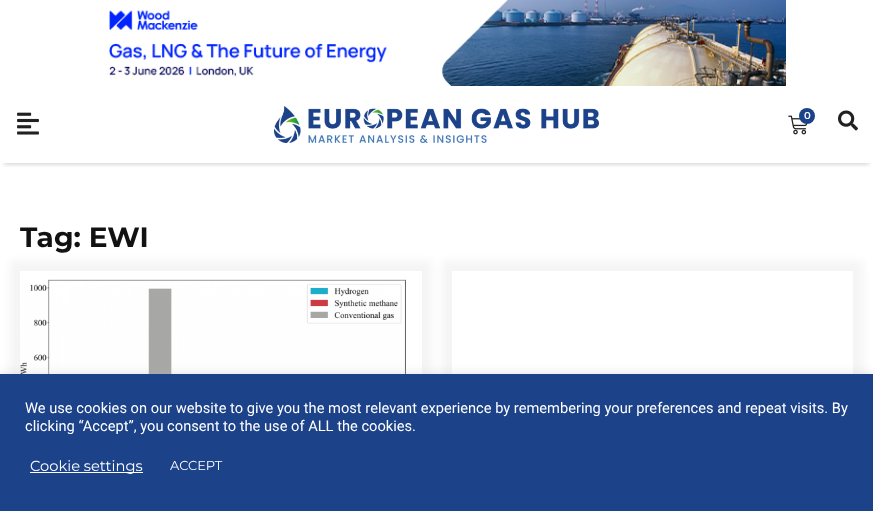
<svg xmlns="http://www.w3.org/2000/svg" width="873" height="511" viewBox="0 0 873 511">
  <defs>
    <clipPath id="clip1"><rect x="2" y="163" width="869" height="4"/></clipPath>
    <filter id="blur1" x="-50%" y="-200%" width="200%" height="500%"><feGaussianBlur stdDeviation="2.5"/></filter>
    <clipPath id="clip2"><path d="M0 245H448V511H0ZM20 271H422V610H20Z" clip-rule="evenodd"/></clipPath>
    <filter id="blur2" x="-50%" y="-200%" width="200%" height="500%"><feGaussianBlur stdDeviation="5"/></filter>
    <clipPath id="clip3"><path d="M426 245H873V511H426ZM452 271H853V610H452Z" clip-rule="evenodd"/></clipPath>
  </defs>
  <rect width="100%" height="100%" fill="#ffffff"/>
  <image x="109" y="0" width="677" height="86" href="img1.png"/>
  <g clip-path="url(#clip1)">
    <rect x="4" y="95" width="865" height="69" fill="#000000" fill-opacity="0.2" filter="url(#blur1)"/>
  </g>
  <image x="17" y="112" width="22" height="23" href="img2.png"/>
  <image x="274" y="106" width="325" height="37" href="img3.png"/>
  <image x="788" y="115" width="20" height="20" href="img4.png"/>
  <circle cx="807" cy="116" r="8" fill="#1c4289"/>
  <text x="804" y="119" font-family="Montserrat" font-size="10" font-weight="600" fill="#ffffff">0</text>
  <image x="838" y="110" width="20" height="21" href="img5.png"/>
  <text x="20" y="247" font-family="Montserrat" font-size="28" font-weight="bold" fill="#121212">Tag: EWI</text>
  <g clip-path="url(#clip2)">
    <rect x="10" y="261" width="422" height="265" fill="#f4f4f4" filter="url(#blur2)"/>
  </g>
  <image x="20" y="279" width="386" height="95" href="img6.png"/>
  <g clip-path="url(#clip3)">
    <rect x="442" y="261" width="421" height="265" fill="#f4f4f4" filter="url(#blur2)"/>
  </g>
  <rect x="0" y="373" width="873" height="137" fill="#acabab" fill-opacity="0.3" filter="url(#blur2)"/>
  <rect x="0" y="374" width="873" height="137" fill="#1c4289"/>
  <text x="25" y="413" font-family="Roboto" font-size="14.67" fill="#ffffff">We use cookies on our website to give you the most relevant experience by remembering your preferences and repeat visits. By</text>
  <text x="25" y="431" font-family="Roboto" font-size="14.67" fill="#ffffff">clicking “Accept”, you consent to the use of ALL the cookies.</text>
  <rect x="30" y="472" width="113" height="1" fill="#ffffff"/>
  <text x="30" y="471" font-family="Montserrat" font-size="14.67" fill="#ffffff">Cookie settings</text>
  <text x="170" y="470" font-family="Montserrat" font-size="13" fill="#ffffff">ACCEPT</text>
</svg>
